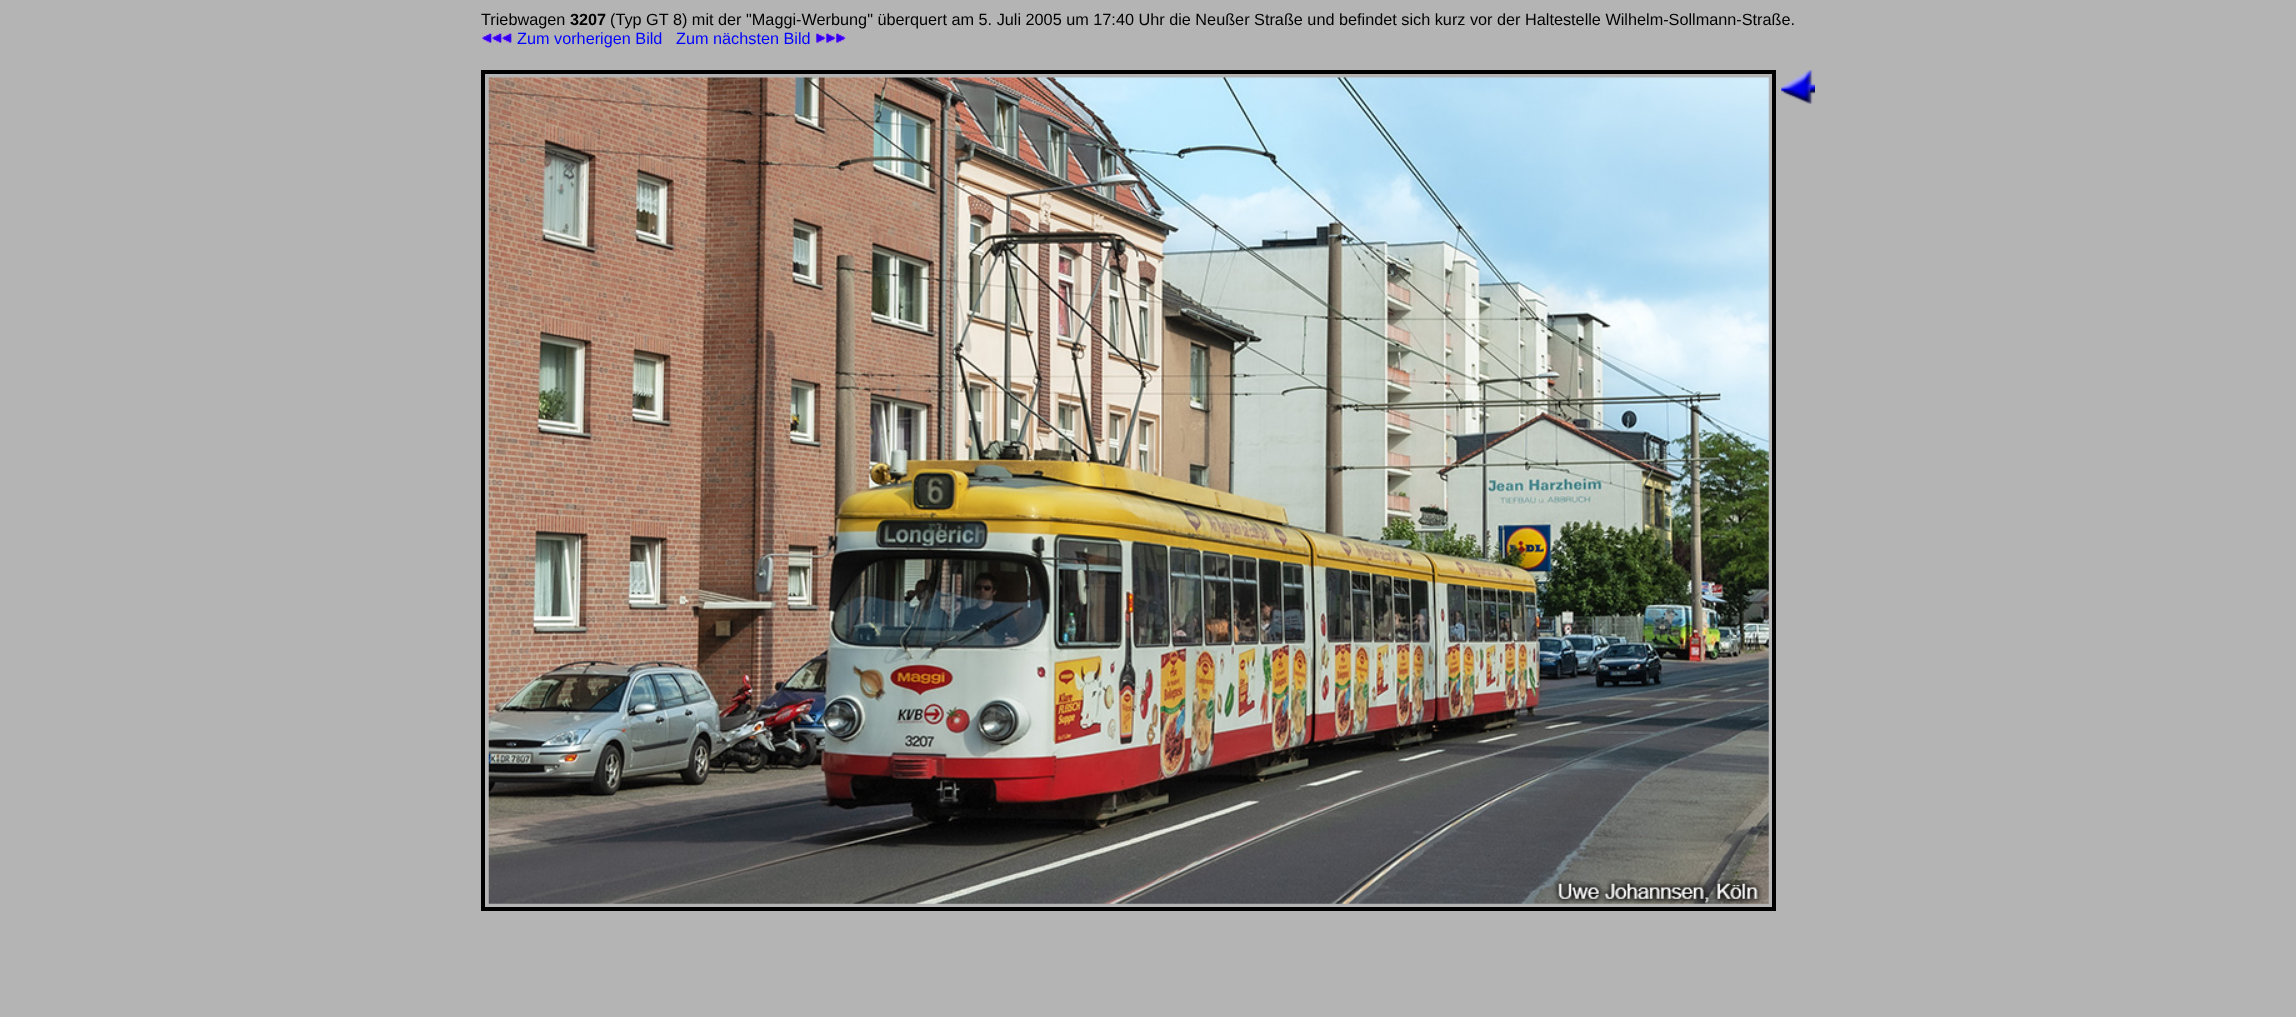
<svg xmlns="http://www.w3.org/2000/svg" width="2296" height="1017" viewBox="0 0 2296 1017">
  <rect width="100%" height="100%" fill="#b4b4b4"/>
  <text x="481" y="25" font-family="Liberation Sans" font-size="16.25" fill="#000000">Triebwagen</text>
  <text x="570" y="25" font-family="Liberation Sans" font-size="16.25" font-weight="bold" fill="#000000">3207</text>
  <text x="610" y="25" font-family="Liberation Sans" font-size="16.25" fill="#000000">(Typ GT 8) mit der "Maggi-Werbung" überquert am 5. Juli 2005 um 17:40 Uhr die Neußer Straße und befindet sich kurz vor der Haltestelle Wilhelm-Sollmann-Straße.</text>
  <image x="481" y="33" width="31" height="10" href="img1.png"/>
  <text x="517" y="44" font-family="Liberation Sans" font-size="16.25" fill="#0000ff">Zum vorherigen Bild</text>
  <text x="676" y="44" font-family="Liberation Sans" font-size="16.25" fill="#0000ff">Zum nächsten Bild</text>
  <image x="816" y="33" width="31" height="10" href="img2.png"/>
  <rect x="483" y="72" width="1291" height="837" fill="none" stroke="#000000" stroke-width="4"/>
  <image x="488" y="77" width="1281" height="827" href="img3.png"/>
  <image x="1781" y="70" width="34" height="34" href="img4.png"/>
</svg>
